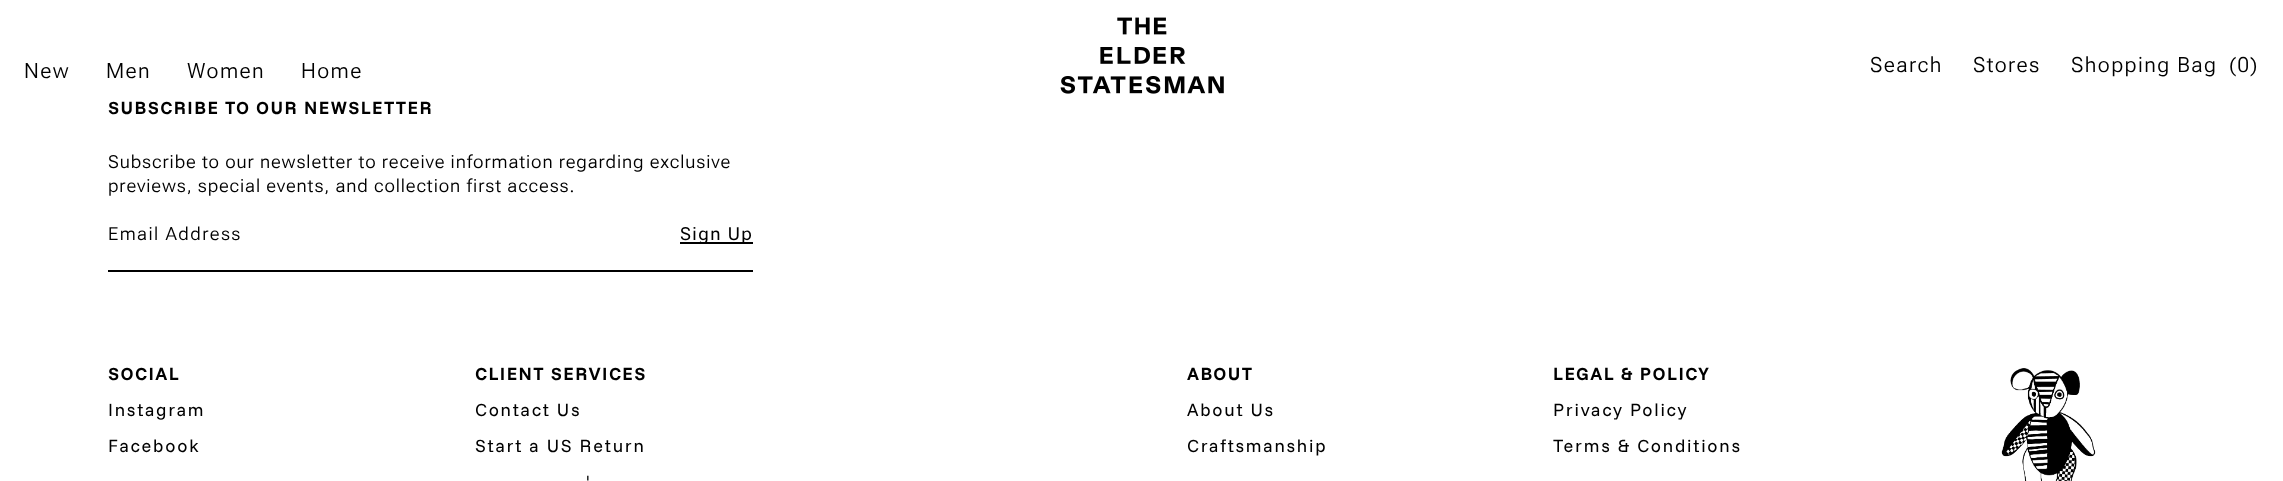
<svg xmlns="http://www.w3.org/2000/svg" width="2283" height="481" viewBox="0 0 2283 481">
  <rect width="100%" height="100%" fill="#ffffff"/>
  <text x="24" y="78" font-family="'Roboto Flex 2'" font-size="21" font-weight="300" letter-spacing="1.45" fill="#000000">New</text>
  <text x="106" y="78" font-family="'Roboto Flex 2'" font-size="21" font-weight="300" letter-spacing="1.45" fill="#000000">Men</text>
  <text x="187" y="78" font-family="'Roboto Flex 2'" font-size="21" font-weight="300" letter-spacing="1.45" fill="#000000">Women</text>
  <text x="301" y="78" font-family="'Roboto Flex 2'" font-size="21" font-weight="300" letter-spacing="1.45" fill="#000000">Home</text>
  <image x="1060" y="17" width="164" height="77" href="img1.png"/>
  <text x="1870" y="72" font-family="'Roboto Flex 2'" font-size="21" font-weight="300" letter-spacing="1.45" fill="#000000">Search</text>
  <text x="1973" y="72" font-family="'Roboto Flex 2'" font-size="21" font-weight="300" letter-spacing="1.45" fill="#000000">Stores</text>
  <text x="2071" y="72" font-family="'Roboto Flex 2'" font-size="21" font-weight="300" letter-spacing="1.45" fill="#000000">Shopping Bag</text>
  <text x="2229" y="72" font-family="'Roboto Flex 2'" font-size="21" font-weight="300" letter-spacing="1.45" fill="#000000">(0)</text>
  <text x="108" y="114" font-family="Funnel Sans" font-size="18" font-weight="bold" letter-spacing="1.45" fill="#000000">SUBSCRIBE TO OUR NEWSLETTER</text>
  <text x="108" y="168" font-family="Roboto Flex" font-size="18" font-weight="300" letter-spacing="0.9" fill="#000000">Subscribe to our newsletter to receive information regarding exclusive</text>
  <text x="108" y="192" font-family="Roboto Flex" font-size="18" font-weight="300" letter-spacing="0.9" fill="#000000">previews, special events, and collection first access.</text>
  <rect x="108" y="270" width="645" height="2" fill="#000000"/>
  <text x="108" y="240" font-family="Roboto Flex" font-size="18" font-weight="300" letter-spacing="1.45" fill="#000000">Email Address</text>
  <rect x="680" y="242" width="73" height="2" fill="#000000"/>
  <text x="680" y="240" font-family="Roboto Flex" font-size="18" letter-spacing="1.45" fill="#000000">Sign Up</text>
  <text x="108" y="380" font-family="Funnel Sans" font-size="18" font-weight="bold" letter-spacing="1.45" fill="#000000">SOCIAL</text>
  <text x="108" y="416" font-family="Funnel Sans" font-size="18" letter-spacing="1.75" fill="#000000">Instagram</text>
  <text x="108" y="452" font-family="Funnel Sans" font-size="18" letter-spacing="1.75" fill="#000000">Facebook</text>
  <text x="475" y="380" font-family="Funnel Sans" font-size="18" font-weight="bold" letter-spacing="1.45" fill="#000000">CLIENT SERVICES</text>
  <text x="475" y="416" font-family="Funnel Sans" font-size="18" letter-spacing="1.75" fill="#000000">Contact Us</text>
  <text x="475" y="452" font-family="Funnel Sans" font-size="18" letter-spacing="1.75" fill="#000000">Start a US Return</text>
  <text x="586" y="488" font-family="Funnel Sans" font-size="18" letter-spacing="1.75" fill="#000000">'</text>
  <text x="1187" y="380" font-family="Funnel Sans" font-size="18" font-weight="bold" letter-spacing="1.45" fill="#000000">ABOUT</text>
  <text x="1187" y="416" font-family="Funnel Sans" font-size="18" letter-spacing="1.75" fill="#000000">About Us</text>
  <text x="1187" y="452" font-family="Funnel Sans" font-size="18" letter-spacing="1.75" fill="#000000">Craftsmanship</text>
  <text x="1553" y="380" font-family="Funnel Sans" font-size="18" font-weight="bold" letter-spacing="1.45" fill="#000000">LEGAL &amp; POLICY</text>
  <text x="1553" y="416" font-family="Funnel Sans" font-size="18" letter-spacing="1.75" fill="#000000">Privacy Policy</text>
  <text x="1553" y="452" font-family="Funnel Sans" font-size="18" letter-spacing="1.75" fill="#000000">Terms &amp; Conditions</text>
  <image x="2001" y="368" width="95" height="113" href="img2.png"/>
</svg>
